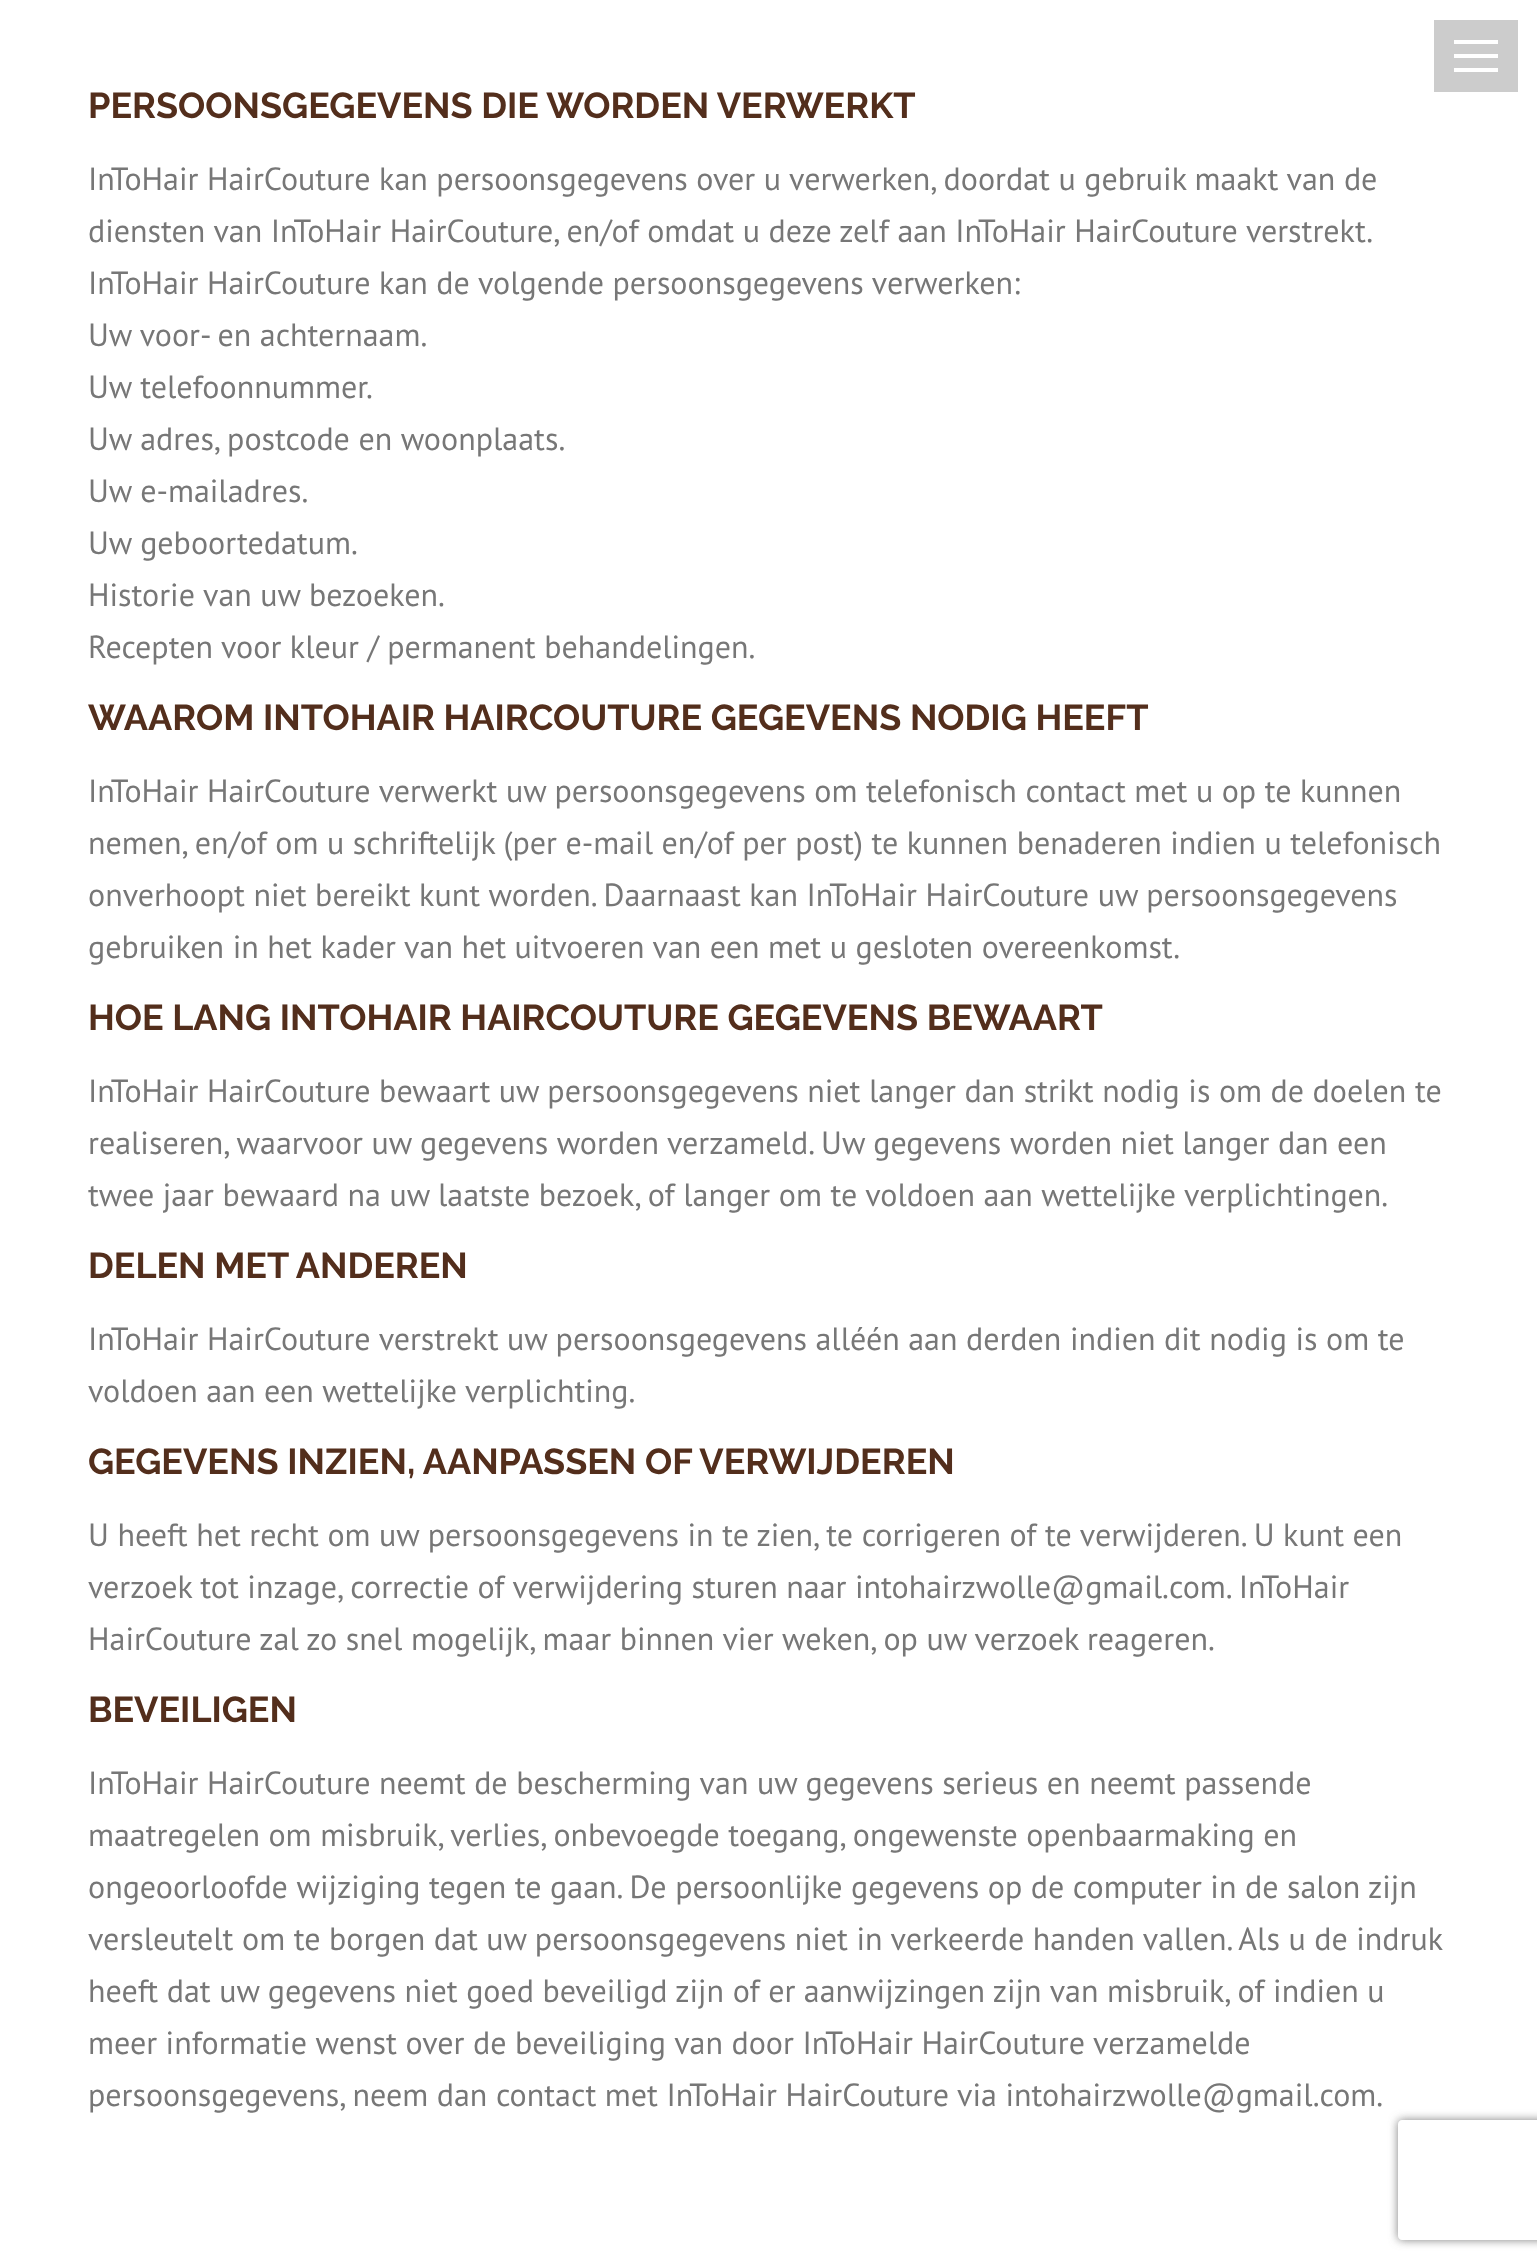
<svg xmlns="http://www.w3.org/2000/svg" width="1537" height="2267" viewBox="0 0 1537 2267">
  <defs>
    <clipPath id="clip1"><path d="M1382 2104H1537V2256H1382ZM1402 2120H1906C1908 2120 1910 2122 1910 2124V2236C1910 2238 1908 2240 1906 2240H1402C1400 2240 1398 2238 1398 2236V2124C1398 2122 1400 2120 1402 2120Z" clip-rule="evenodd"/></clipPath>
    <filter id="blur1" x="-50%" y="-200%" width="200%" height="500%"><feGaussianBlur stdDeviation="5"/></filter>
  </defs>
  <rect width="100%" height="100%" fill="#ffffff"/>
  <rect x="1434" y="20" width="84" height="72" fill="#cccccc"/>
  <rect x="1454" y="40" width="44" height="4" fill="#ffffff"/>
  <rect x="1454" y="54" width="44" height="4" fill="#ffffff"/>
  <rect x="1454" y="68" width="44" height="4" fill="#ffffff"/>
  <text x="88" y="118" font-family="Raleway" font-size="36" font-weight="bold" fill="#532e1c">PERSOONSGEGEVENS DIE WORDEN VERWERKT</text>
  <text x="88" y="190" font-family="PT Sans" font-size="32" fill="#777777">InToHair HairCouture kan persoonsgegevens over u verwerken, doordat u gebruik maakt van de</text>
  <text x="88" y="242" font-family="PT Sans" font-size="32" fill="#777777">diensten van InToHair HairCouture, en/of omdat u deze zelf aan InToHair HairCouture verstrekt.</text>
  <text x="88" y="294" font-family="PT Sans" font-size="32" fill="#777777">InToHair HairCouture kan de volgende persoonsgegevens verwerken:</text>
  <text x="88" y="346" font-family="PT Sans" font-size="32" fill="#777777">Uw voor- en achternaam.</text>
  <text x="88" y="398" font-family="PT Sans" font-size="32" fill="#777777">Uw telefoonnummer.</text>
  <text x="88" y="450" font-family="PT Sans" font-size="32" fill="#777777">Uw adres, postcode en woonplaats.</text>
  <text x="88" y="502" font-family="PT Sans" font-size="32" fill="#777777">Uw e-mailadres.</text>
  <text x="88" y="554" font-family="PT Sans" font-size="32" fill="#777777">Uw geboortedatum.</text>
  <text x="88" y="606" font-family="PT Sans" font-size="32" fill="#777777">Historie van uw bezoeken.</text>
  <text x="88" y="658" font-family="PT Sans" font-size="32" fill="#777777">Recepten voor kleur / permanent behandelingen.</text>
  <text x="88" y="730" font-family="Raleway" font-size="36" font-weight="bold" fill="#532e1c">WAAROM INTOHAIR HAIRCOUTURE GEGEVENS NODIG HEEFT</text>
  <text x="88" y="802" font-family="PT Sans" font-size="32" fill="#777777">InToHair HairCouture verwerkt uw persoonsgegevens om telefonisch contact met u op te kunnen</text>
  <text x="88" y="854" font-family="PT Sans" font-size="32" fill="#777777">nemen, en/of om u schriftelijk (per e-mail en/of per post) te kunnen benaderen indien u telefonisch</text>
  <text x="88" y="906" font-family="PT Sans" font-size="32" fill="#777777">onverhoopt niet bereikt kunt worden. Daarnaast kan InToHair HairCouture uw persoonsgegevens</text>
  <text x="88" y="958" font-family="PT Sans" font-size="32" fill="#777777">gebruiken in het kader van het uitvoeren van een met u gesloten overeenkomst.</text>
  <text x="88" y="1030" font-family="Raleway" font-size="36" font-weight="bold" fill="#532e1c">HOE LANG INTOHAIR HAIRCOUTURE GEGEVENS BEWAART</text>
  <text x="88" y="1102" font-family="PT Sans" font-size="32" fill="#777777">InToHair HairCouture bewaart uw persoonsgegevens niet langer dan strikt nodig is om de doelen te</text>
  <text x="88" y="1154" font-family="PT Sans" font-size="32" fill="#777777">realiseren, waarvoor uw gegevens worden verzameld. Uw gegevens worden niet langer dan een</text>
  <text x="88" y="1206" font-family="PT Sans" font-size="32" fill="#777777">twee jaar bewaard na uw laatste bezoek, of langer om te voldoen aan wettelijke verplichtingen.</text>
  <text x="88" y="1278" font-family="Raleway" font-size="36" font-weight="bold" fill="#532e1c">DELEN MET ANDEREN</text>
  <text x="88" y="1350" font-family="PT Sans" font-size="32" fill="#777777">InToHair HairCouture verstrekt uw persoonsgegevens alléén aan derden indien dit nodig is om te</text>
  <text x="88" y="1402" font-family="PT Sans" font-size="32" fill="#777777">voldoen aan een wettelijke verplichting.</text>
  <text x="88" y="1474" font-family="Raleway" font-size="36" font-weight="bold" fill="#532e1c">GEGEVENS INZIEN, AANPASSEN OF VERWIJDEREN</text>
  <text x="88" y="1546" font-family="PT Sans" font-size="32" fill="#777777">U heeft het recht om uw persoonsgegevens in te zien, te corrigeren of te verwijderen. U kunt een</text>
  <text x="88" y="1598" font-family="PT Sans" font-size="32" fill="#777777">verzoek tot inzage, correctie of verwijdering sturen naar intohairzwolle@gmail.com. InToHair</text>
  <text x="88" y="1650" font-family="PT Sans" font-size="32" fill="#777777">HairCouture zal zo snel mogelijk, maar binnen vier weken, op uw verzoek reageren.</text>
  <text x="88" y="1722" font-family="Raleway" font-size="36" font-weight="bold" fill="#532e1c">BEVEILIGEN</text>
  <text x="88" y="1794" font-family="PT Sans" font-size="32" fill="#777777">InToHair HairCouture neemt de bescherming van uw gegevens serieus en neemt passende</text>
  <text x="88" y="1846" font-family="PT Sans" font-size="32" fill="#777777">maatregelen om misbruik, verlies, onbevoegde toegang, ongewenste openbaarmaking en</text>
  <text x="88" y="1898" font-family="PT Sans" font-size="32" fill="#777777">ongeoorloofde wijziging tegen te gaan. De persoonlijke gegevens op de computer in de salon zijn</text>
  <text x="88" y="1950" font-family="PT Sans" font-size="32" fill="#777777">versleutelt om te borgen dat uw persoonsgegevens niet in verkeerde handen vallen. Als u de indruk</text>
  <text x="88" y="2002" font-family="PT Sans" font-size="32" fill="#777777">heeft dat uw gegevens niet goed beveiligd zijn of er aanwijzingen zijn van misbruik, of indien u</text>
  <text x="88" y="2054" font-family="PT Sans" font-size="32" fill="#777777">meer informatie wenst over de beveiliging van door InToHair HairCouture verzamelde</text>
  <text x="88" y="2106" font-family="PT Sans" font-size="32" fill="#777777">persoonsgegevens, neem dan contact met InToHair HairCouture via intohairzwolle@gmail.com.</text>
  <g clip-path="url(#clip1)">
    <rect x="1398" y="2120" width="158" height="120" rx="4" fill="#808080" filter="url(#blur1)"/>
  </g>
</svg>
